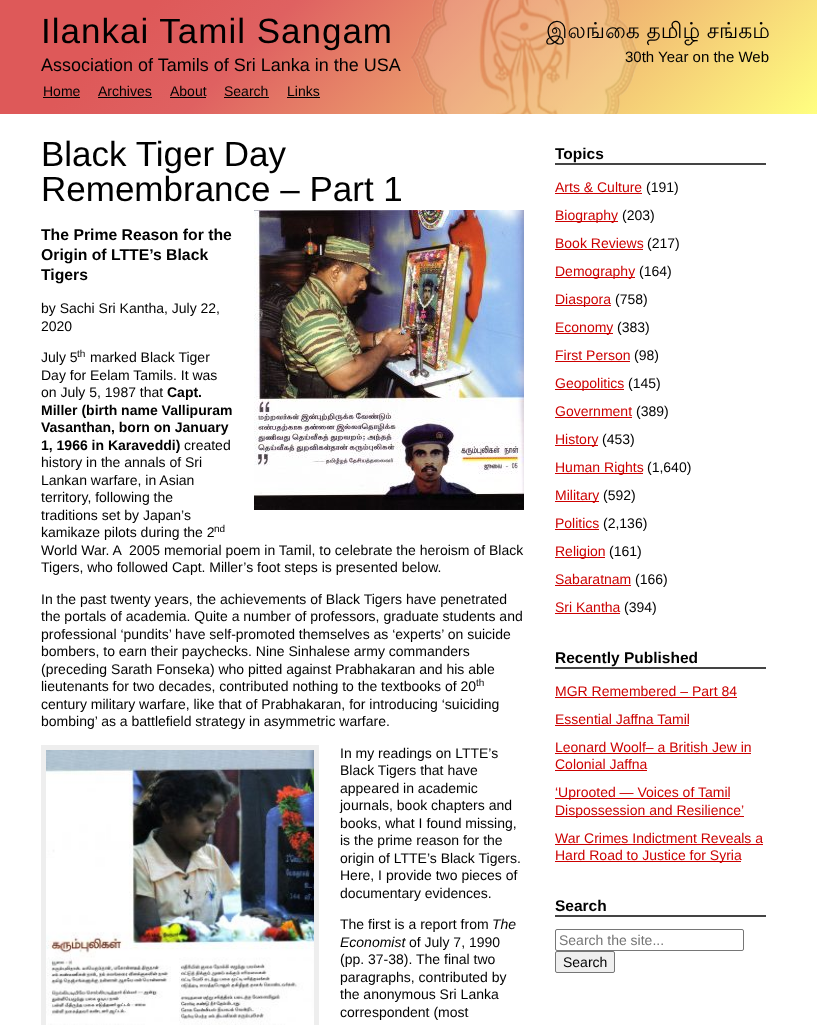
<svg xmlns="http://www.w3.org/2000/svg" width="817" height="1025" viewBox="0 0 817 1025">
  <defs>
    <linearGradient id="g1" gradientUnits="userSpaceOnUse" x1="176" y1="-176" x2="641" y2="290"><stop offset="0" stop-color="#de5959"/><stop offset="0.17" stop-color="#de5959"/><stop offset="0.32" stop-color="#df6161"/><stop offset="1" stop-color="#ffff80"/></linearGradient>
  </defs>
  <rect width="100%" height="100%" fill="#ffffff"/>
  <rect x="0" y="0" width="817" height="114" fill="url(#g1)"/>
  <image x="411" y="0" width="230" height="114" href="img1.png"/>
  <text x="41" y="43" font-family="Liberation Sans" font-size="35" letter-spacing="1" fill="#000000">Ilankai Tamil Sangam</text>
  <text x="546" y="38" font-family="Lohit Tamil" font-size="22" fill="#000000">இலங்கை தமிழ் சங்கம்</text>
  <text x="625" y="62" font-family="Liberation Sans" font-size="15" fill="#000000">30th Year on the Web</text>
  <text x="41" y="71" font-family="Liberation Sans" font-size="18" fill="#000000">Association of Tamils of Sri Lanka in the USA</text>
  <text x="43" y="96" font-family="Liberation Sans" font-size="14" fill="#000000">Home</text>
  <rect x="43" y="97" width="37" height="1" fill="#000000"/>
  <text x="98" y="96" font-family="Liberation Sans" font-size="14" fill="#000000">Archives</text>
  <rect x="98" y="97" width="54" height="1" fill="#000000"/>
  <text x="170" y="96" font-family="Liberation Sans" font-size="14" fill="#000000">About</text>
  <rect x="170" y="97" width="36" height="1" fill="#000000"/>
  <text x="224" y="96" font-family="Liberation Sans" font-size="14" fill="#000000">Search</text>
  <rect x="224" y="97" width="45" height="1" fill="#000000"/>
  <text x="287" y="96" font-family="Liberation Sans" font-size="14" fill="#000000">Links</text>
  <rect x="287" y="97" width="33" height="1" fill="#000000"/>
  <text x="41" y="166" font-family="Liberation Sans" font-size="35" fill="#000000">Black Tiger Day</text>
  <text x="41" y="201" font-family="Liberation Sans" font-size="35" fill="#000000">Remembrance – Part 1</text>
  <text x="41" y="240" font-family="Liberation Sans" font-size="15.75" font-weight="bold" fill="#000000">The Prime Reason for the</text>
  <text x="41" y="260" font-family="Liberation Sans" font-size="15.75" font-weight="bold" fill="#000000">Origin of LTTE’s Black</text>
  <text x="41" y="280" font-family="Liberation Sans" font-size="15.75" font-weight="bold" fill="#000000">Tigers</text>
  <image x="254" y="210" width="270" height="300" href="img2.png"/>
  <text x="41" y="313" font-family="Liberation Sans" font-size="14" fill="#000000">by Sachi Sri Kantha, July 22,</text>
  <text x="41" y="331" font-family="Liberation Sans" font-size="14" fill="#000000">2020</text>
  <text x="41" y="362" font-family="Liberation Sans" font-size="14" fill="#000000">July 5</text>
  <text x="77" y="357" font-family="Liberation Sans" font-size="10" fill="#000000">th</text>
  <text x="90" y="362" font-family="Liberation Sans" font-size="14" fill="#000000">marked Black Tiger</text>
  <text x="41" y="380" font-family="Liberation Sans" font-size="14" fill="#000000">Day for Eelam Tamils. It was</text>
  <text x="41" y="397" font-family="Liberation Sans" font-size="14" fill="#000000">on July 5, 1987 that</text>
  <text x="167" y="397" font-family="Liberation Sans" font-size="14" font-weight="bold" fill="#000000">Capt.</text>
  <text x="41" y="415" font-family="Liberation Sans" font-size="14" font-weight="bold" fill="#000000">Miller (birth name Vallipuram</text>
  <text x="41" y="432" font-family="Liberation Sans" font-size="14" font-weight="bold" fill="#000000">Vasanthan, born on January</text>
  <text x="41" y="450" font-family="Liberation Sans" font-size="14" font-weight="bold" fill="#000000">1, 1966 in Karaveddi)</text>
  <text x="184" y="450" font-family="Liberation Sans" font-size="14" fill="#000000">created</text>
  <text x="41" y="467" font-family="Liberation Sans" font-size="14" fill="#000000">history in the annals of Sri</text>
  <text x="41" y="485" font-family="Liberation Sans" font-size="14" fill="#000000">Lankan warfare, in Asian</text>
  <text x="41" y="502" font-family="Liberation Sans" font-size="14" fill="#000000">territory, following the</text>
  <text x="41" y="520" font-family="Liberation Sans" font-size="14" fill="#000000">traditions set by Japan’s</text>
  <text x="41" y="537" font-family="Liberation Sans" font-size="14" fill="#000000">kamikaze pilots during the 2</text>
  <text x="214" y="532" font-family="Liberation Sans" font-size="10" fill="#000000">nd</text>
  <text x="41" y="555" font-family="Liberation Sans" font-size="14" fill="#000000" xml:space="preserve">World War. A  2005 memorial poem in Tamil, to celebrate the heroism of Black</text>
  <text x="41" y="572" font-family="Liberation Sans" font-size="14" fill="#000000">Tigers, who followed Capt. Miller’s foot steps is presented below.</text>
  <text x="41" y="604" font-family="Liberation Sans" font-size="14" fill="#000000">In the past twenty years, the achievements of Black Tigers have penetrated</text>
  <text x="41" y="621" font-family="Liberation Sans" font-size="14" fill="#000000">the portals of academia. Quite a number of professors, graduate students and</text>
  <text x="41" y="639" font-family="Liberation Sans" font-size="14" fill="#000000">professional ‘pundits’ have self-promoted themselves as ‘experts’ on suicide</text>
  <text x="41" y="656" font-family="Liberation Sans" font-size="14" fill="#000000">bombers, to earn their paychecks. Nine Sinhalese army commanders</text>
  <text x="41" y="674" font-family="Liberation Sans" font-size="14" fill="#000000">(preceding Sarath Fonseka) who pitted against Prabhakaran and his able</text>
  <text x="41" y="691" font-family="Liberation Sans" font-size="14" fill="#000000">lieutenants for two decades, contributed nothing to the textbooks of 20</text>
  <text x="476" y="686" font-family="Liberation Sans" font-size="10" fill="#000000">th</text>
  <text x="41" y="709" font-family="Liberation Sans" font-size="14" fill="#000000">century military warfare, like that of Prabhakaran, for introducing ‘suiciding</text>
  <text x="41" y="726" font-family="Liberation Sans" font-size="14" fill="#000000">bombing’ as a battlefield strategy in asymmetric warfare.</text>
  <rect x="41" y="745" width="278" height="280" fill="#eeeeee"/>
  <image x="46" y="750" width="268" height="275" href="img3.png"/>
  <text x="340" y="758" font-family="Liberation Sans" font-size="14" fill="#000000">In my readings on LTTE’s</text>
  <text x="340" y="775" font-family="Liberation Sans" font-size="14" fill="#000000">Black Tigers that have</text>
  <text x="340" y="793" font-family="Liberation Sans" font-size="14" fill="#000000">appeared in academic</text>
  <text x="340" y="810" font-family="Liberation Sans" font-size="14" fill="#000000">journals, book chapters and</text>
  <text x="340" y="828" font-family="Liberation Sans" font-size="14" fill="#000000">books, what I found missing,</text>
  <text x="340" y="845" font-family="Liberation Sans" font-size="14" fill="#000000">is the prime reason for the</text>
  <text x="340" y="863" font-family="Liberation Sans" font-size="14" fill="#000000">origin of LTTE’s Black Tigers.</text>
  <text x="340" y="880" font-family="Liberation Sans" font-size="14" fill="#000000">Here, I provide two pieces of</text>
  <text x="340" y="898" font-family="Liberation Sans" font-size="14" fill="#000000">documentary evidences.</text>
  <text x="340" y="929" font-family="Liberation Sans" font-size="14" fill="#000000">The first is a report from</text>
  <text x="492" y="929" font-family="Liberation Sans" font-size="14" font-style="italic" fill="#000000">The</text>
  <text x="340" y="947" font-family="Liberation Sans" font-size="14" font-style="italic" fill="#000000">Economist</text>
  <text x="409" y="947" font-family="Liberation Sans" font-size="14" fill="#000000">of July 7, 1990</text>
  <text x="340" y="964" font-family="Liberation Sans" font-size="14" fill="#000000">(pp. 37-38). The final two</text>
  <text x="340" y="982" font-family="Liberation Sans" font-size="14" fill="#000000">paragraphs, contributed by</text>
  <text x="340" y="999" font-family="Liberation Sans" font-size="14" fill="#000000">the anonymous Sri Lanka</text>
  <text x="340" y="1017" font-family="Liberation Sans" font-size="14" fill="#000000">correspondent (most</text>
  <rect x="555" y="163" width="211" height="2" fill="#444444"/>
  <text x="555" y="159" font-family="Liberation Sans" font-size="15.5" font-weight="bold" fill="#000000">Topics</text>
  <text x="555" y="192" font-family="Liberation Sans" font-size="14" fill="#cc0000">Arts &amp; Culture</text>
  <rect x="555" y="193" width="87" height="1" fill="#cc0000"/>
  <text x="646" y="192" font-family="Liberation Sans" font-size="14" fill="#000000">(191)</text>
  <rect x="555" y="221" width="63" height="1" fill="#cc0000"/>
  <text x="555" y="220" font-family="Liberation Sans" font-size="14" fill="#cc0000">Biography</text>
  <text x="622" y="220" font-family="Liberation Sans" font-size="14" fill="#000000">(203)</text>
  <text x="555" y="248" font-family="Liberation Sans" font-size="14" fill="#cc0000">Book Reviews</text>
  <rect x="555" y="249" width="88" height="1" fill="#cc0000"/>
  <text x="647" y="248" font-family="Liberation Sans" font-size="14" fill="#000000">(217)</text>
  <rect x="555" y="277" width="80" height="1" fill="#cc0000"/>
  <text x="555" y="276" font-family="Liberation Sans" font-size="14" fill="#cc0000">Demography</text>
  <text x="639" y="276" font-family="Liberation Sans" font-size="14" fill="#000000">(164)</text>
  <rect x="555" y="305" width="56" height="1" fill="#cc0000"/>
  <text x="555" y="304" font-family="Liberation Sans" font-size="14" fill="#cc0000">Diaspora</text>
  <text x="615" y="304" font-family="Liberation Sans" font-size="14" fill="#000000">(758)</text>
  <rect x="555" y="333" width="58" height="1" fill="#cc0000"/>
  <text x="555" y="332" font-family="Liberation Sans" font-size="14" fill="#cc0000">Economy</text>
  <text x="617" y="332" font-family="Liberation Sans" font-size="14" fill="#000000">(383)</text>
  <text x="555" y="360" font-family="Liberation Sans" font-size="14" fill="#cc0000">First Person</text>
  <rect x="555" y="361" width="75" height="1" fill="#cc0000"/>
  <text x="634" y="360" font-family="Liberation Sans" font-size="14" fill="#000000">(98)</text>
  <rect x="555" y="389" width="69" height="1" fill="#cc0000"/>
  <text x="555" y="388" font-family="Liberation Sans" font-size="14" fill="#cc0000">Geopolitics</text>
  <text x="628" y="388" font-family="Liberation Sans" font-size="14" fill="#000000">(145)</text>
  <text x="555" y="416" font-family="Liberation Sans" font-size="14" fill="#cc0000">Government</text>
  <rect x="555" y="417" width="77" height="1" fill="#cc0000"/>
  <text x="636" y="416" font-family="Liberation Sans" font-size="14" fill="#000000">(389)</text>
  <rect x="555" y="445" width="43" height="1" fill="#cc0000"/>
  <text x="555" y="444" font-family="Liberation Sans" font-size="14" fill="#cc0000">History</text>
  <text x="602" y="444" font-family="Liberation Sans" font-size="14" fill="#000000">(453)</text>
  <rect x="555" y="473" width="88" height="1" fill="#cc0000"/>
  <text x="555" y="472" font-family="Liberation Sans" font-size="14" fill="#cc0000">Human Rights</text>
  <text x="647" y="472" font-family="Liberation Sans" font-size="14" fill="#000000">(1,640)</text>
  <rect x="555" y="501" width="44" height="1" fill="#cc0000"/>
  <text x="555" y="500" font-family="Liberation Sans" font-size="14" fill="#cc0000">Military</text>
  <text x="603" y="500" font-family="Liberation Sans" font-size="14" fill="#000000">(592)</text>
  <text x="555" y="528" font-family="Liberation Sans" font-size="14" fill="#cc0000">Politics</text>
  <rect x="555" y="529" width="44" height="1" fill="#cc0000"/>
  <text x="603" y="528" font-family="Liberation Sans" font-size="14" fill="#000000">(2,136)</text>
  <rect x="555" y="557" width="50" height="1" fill="#cc0000"/>
  <text x="555" y="556" font-family="Liberation Sans" font-size="14" fill="#cc0000">Religion</text>
  <text x="609" y="556" font-family="Liberation Sans" font-size="14" fill="#000000">(161)</text>
  <text x="555" y="584" font-family="Liberation Sans" font-size="14" fill="#cc0000">Sabaratnam</text>
  <rect x="555" y="585" width="76" height="1" fill="#cc0000"/>
  <text x="635" y="584" font-family="Liberation Sans" font-size="14" fill="#000000">(166)</text>
  <text x="555" y="612" font-family="Liberation Sans" font-size="14" fill="#cc0000">Sri Kantha</text>
  <rect x="555" y="613" width="65" height="1" fill="#cc0000"/>
  <text x="624" y="612" font-family="Liberation Sans" font-size="14" fill="#000000">(394)</text>
  <rect x="555" y="667" width="211" height="2" fill="#444444"/>
  <text x="555" y="663" font-family="Liberation Sans" font-size="15.5" font-weight="bold" fill="#000000">Recently Published</text>
  <text x="555" y="696" font-family="Liberation Sans" font-size="14" fill="#cc0000">MGR Remembered – Part 84</text>
  <rect x="555" y="697" width="182" height="1" fill="#cc0000"/>
  <text x="555" y="724" font-family="Liberation Sans" font-size="14" fill="#cc0000">Essential Jaffna Tamil</text>
  <rect x="555" y="725" width="134" height="1" fill="#cc0000"/>
  <text x="555" y="752" font-family="Liberation Sans" font-size="14" fill="#cc0000">Leonard Woolf– a British Jew in</text>
  <rect x="555" y="753" width="196" height="1" fill="#cc0000"/>
  <text x="555" y="769" font-family="Liberation Sans" font-size="14" fill="#cc0000">Colonial Jaffna</text>
  <rect x="555" y="770" width="92" height="1" fill="#cc0000"/>
  <rect x="555" y="798" width="175" height="1" fill="#cc0000"/>
  <text x="555" y="797" font-family="Liberation Sans" font-size="14" fill="#cc0000">‘Uprooted — Voices of Tamil</text>
  <rect x="555" y="816" width="189" height="1" fill="#cc0000"/>
  <text x="555" y="815" font-family="Liberation Sans" font-size="14" fill="#cc0000">Dispossession and Resilience’</text>
  <text x="555" y="843" font-family="Liberation Sans" font-size="14" fill="#cc0000">War Crimes Indictment Reveals a</text>
  <rect x="555" y="844" width="208" height="1" fill="#cc0000"/>
  <rect x="555" y="861" width="186" height="1" fill="#cc0000"/>
  <text x="555" y="860" font-family="Liberation Sans" font-size="14" fill="#cc0000">Hard Road to Justice for Syria</text>
  <rect x="555" y="915" width="211" height="2" fill="#444444"/>
  <text x="555" y="911" font-family="Liberation Sans" font-size="15.5" font-weight="bold" fill="#000000">Search</text>
  <rect x="555.5" y="929.5" width="188" height="21" rx="1.5" fill="none" stroke="#767676"/>
  <text x="559" y="945" font-family="Liberation Sans" font-size="14" fill="#757575">Search the site...</text>
  <rect x="555.5" y="951.5" width="59" height="21" rx="1.5" fill="#efefef" stroke="#767676"/>
  <text x="563" y="967" font-family="Liberation Sans" font-size="14" fill="#000000">Search</text>
</svg>
